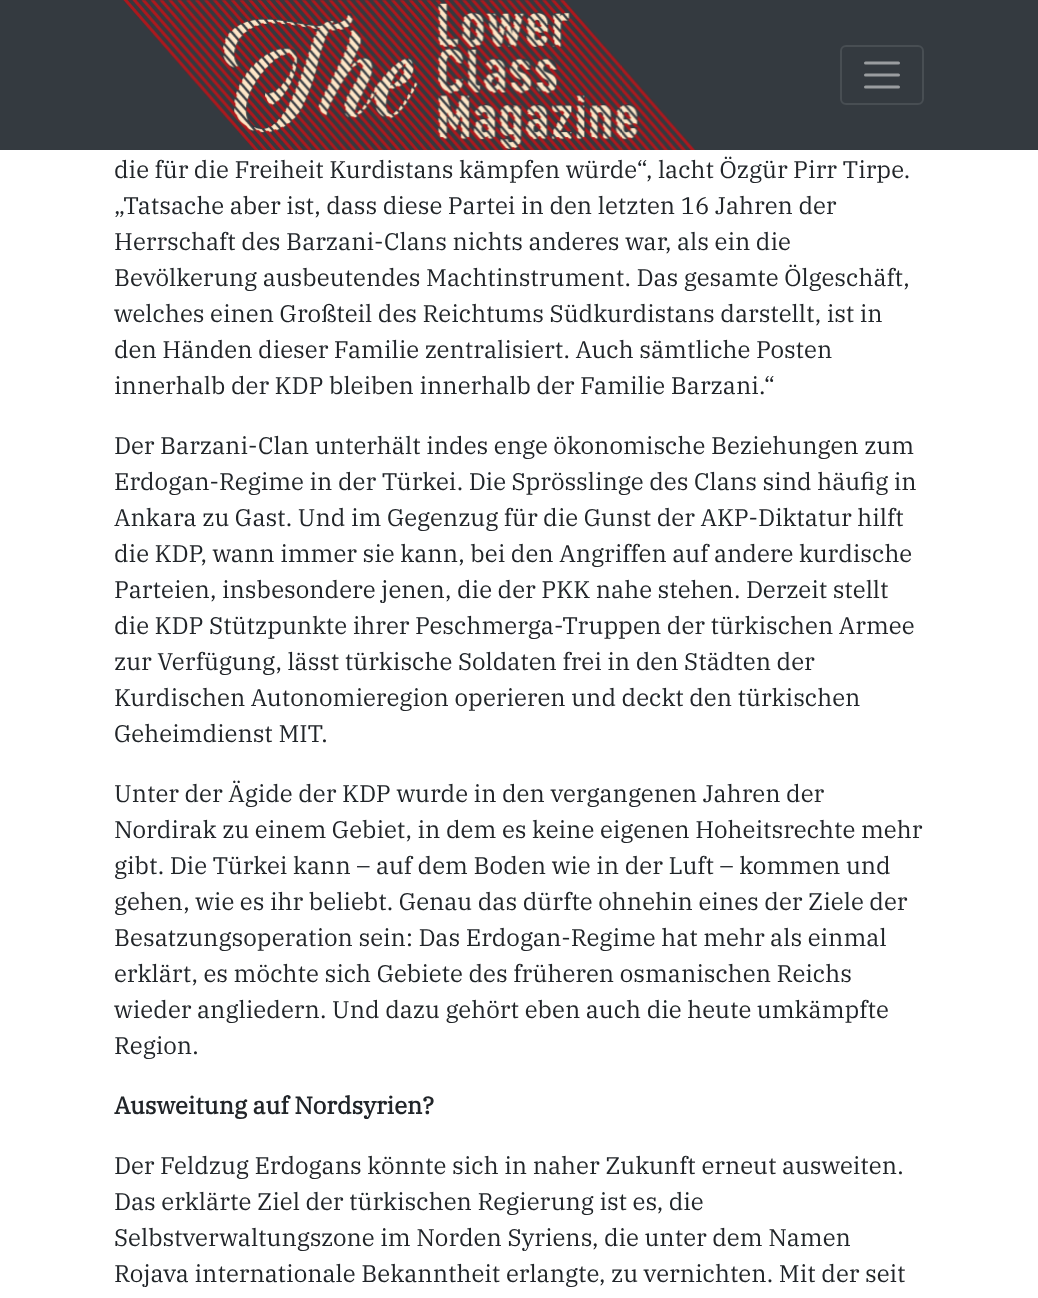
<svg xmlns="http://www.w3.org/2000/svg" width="1038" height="1298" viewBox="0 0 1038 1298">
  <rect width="100%" height="100%" fill="#ffffff"/>
  <rect x="0" y="0" width="1038" height="150" fill="#343a40"/>
  <image x="123" y="0" width="573" height="150" href="img1.png"/>
  <rect x="841" y="46" width="82" height="58" rx="5" fill="none" stroke="#484e53" stroke-width="2"/>
  <path d="M865.5 63H898.5M865.5 75H898.5M865.5 87H898.5" fill="none" stroke="#9a9da0" stroke-width="3" stroke-linecap="round"/>
  <text x="114" y="178" font-family="IBM Plex Serif" font-size="24" fill="#212529">die für die Freiheit Kurdistans kämpfen würde“, lacht Özgür Pirr Tirpe.</text>
  <text x="114" y="214" font-family="IBM Plex Serif" font-size="24" fill="#212529">„Tatsache aber ist, dass diese Partei in den letzten 16 Jahren der</text>
  <text x="114" y="250" font-family="IBM Plex Serif" font-size="24" fill="#212529">Herrschaft des Barzani-Clans nichts anderes war, als ein die</text>
  <text x="114" y="286" font-family="IBM Plex Serif" font-size="24" fill="#212529">Bevölkerung ausbeutendes Machtinstrument. Das gesamte Ölgeschäft,</text>
  <text x="114" y="322" font-family="IBM Plex Serif" font-size="24" fill="#212529">welches einen Großteil des Reichtums Südkurdistans darstellt, ist in</text>
  <text x="114" y="358" font-family="IBM Plex Serif" font-size="24" fill="#212529">den Händen dieser Familie zentralisiert. Auch sämtliche Posten</text>
  <text x="114" y="394" font-family="IBM Plex Serif" font-size="24" fill="#212529">innerhalb der KDP bleiben innerhalb der Familie Barzani.“</text>
  <text x="114" y="454" font-family="IBM Plex Serif" font-size="24" fill="#212529">Der Barzani-Clan unterhält indes enge ökonomische Beziehungen zum</text>
  <text x="114" y="490" font-family="IBM Plex Serif" font-size="24" fill="#212529">Erdogan-Regime in der Türkei. Die Sprösslinge des Clans sind häufig in</text>
  <text x="114" y="526" font-family="IBM Plex Serif" font-size="24" fill="#212529">Ankara zu Gast. Und im Gegenzug für die Gunst der AKP-Diktatur hilft</text>
  <text x="114" y="562" font-family="IBM Plex Serif" font-size="24" fill="#212529">die KDP, wann immer sie kann, bei den Angriffen auf andere kurdische</text>
  <text x="114" y="598" font-family="IBM Plex Serif" font-size="24" fill="#212529">Parteien, insbesondere jenen, die der PKK nahe stehen. Derzeit stellt</text>
  <text x="114" y="634" font-family="IBM Plex Serif" font-size="24" fill="#212529">die KDP Stützpunkte ihrer Peschmerga-Truppen der türkischen Armee</text>
  <text x="114" y="670" font-family="IBM Plex Serif" font-size="24" fill="#212529">zur Verfügung, lässt türkische Soldaten frei in den Städten der</text>
  <text x="114" y="706" font-family="IBM Plex Serif" font-size="24" fill="#212529">Kurdischen Autonomieregion operieren und deckt den türkischen</text>
  <text x="114" y="742" font-family="IBM Plex Serif" font-size="24" fill="#212529">Geheimdienst MIT.</text>
  <text x="114" y="802" font-family="IBM Plex Serif" font-size="24" fill="#212529">Unter der Ägide der KDP wurde in den vergangenen Jahren der</text>
  <text x="114" y="838" font-family="IBM Plex Serif" font-size="24" fill="#212529">Nordirak zu einem Gebiet, in dem es keine eigenen Hoheitsrechte mehr</text>
  <text x="114" y="874" font-family="IBM Plex Serif" font-size="24" fill="#212529">gibt. Die Türkei kann – auf dem Boden wie in der Luft – kommen und</text>
  <text x="114" y="910" font-family="IBM Plex Serif" font-size="24" fill="#212529">gehen, wie es ihr beliebt. Genau das dürfte ohnehin eines der Ziele der</text>
  <text x="114" y="946" font-family="IBM Plex Serif" font-size="24" fill="#212529">Besatzungsoperation sein: Das Erdogan-Regime hat mehr als einmal</text>
  <text x="114" y="982" font-family="IBM Plex Serif" font-size="24" fill="#212529">erklärt, es möchte sich Gebiete des früheren osmanischen Reichs</text>
  <text x="114" y="1018" font-family="IBM Plex Serif" font-size="24" fill="#212529">wieder angliedern. Und dazu gehört eben auch die heute umkämpfte</text>
  <text x="114" y="1054" font-family="IBM Plex Serif" font-size="24" fill="#212529">Region.</text>
  <text x="114" y="1114" font-family="IBM Plex Serif" font-size="24" font-weight="bold" fill="#212529">Ausweitung auf Nordsyrien?</text>
  <text x="114" y="1174" font-family="IBM Plex Serif" font-size="24" fill="#212529">Der Feldzug Erdogans könnte sich in naher Zukunft erneut ausweiten.</text>
  <text x="114" y="1210" font-family="IBM Plex Serif" font-size="24" fill="#212529">Das erklärte Ziel der türkischen Regierung ist es, die</text>
  <text x="114" y="1246" font-family="IBM Plex Serif" font-size="24" fill="#212529">Selbstverwaltungszone im Norden Syriens, die unter dem Namen</text>
  <text x="114" y="1282" font-family="IBM Plex Serif" font-size="24" fill="#212529">Rojava internationale Bekanntheit erlangte, zu vernichten. Mit der seit</text>
</svg>
